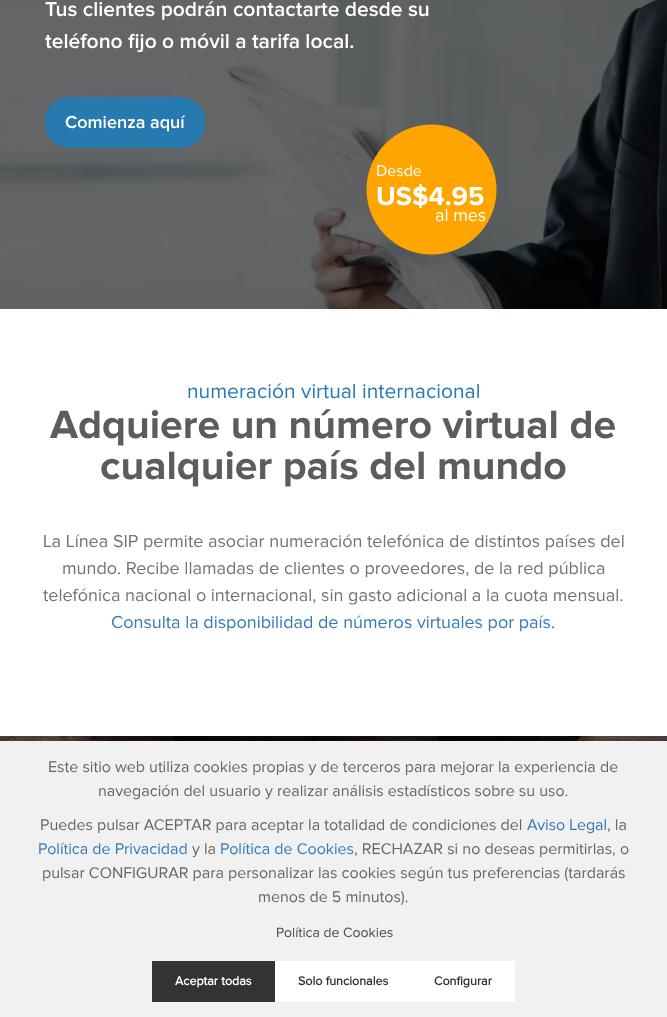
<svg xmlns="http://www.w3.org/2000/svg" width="667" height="1017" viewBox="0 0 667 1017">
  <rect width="100%" height="100%" fill="#ffffff"/>
  <image x="0" y="0" width="667" height="309" href="img1.png"/>
  <text x="45" y="16" font-family="Proxima Nova" font-size="21" font-weight="600" fill="#ffffff">Tus clientes podrán contactarte desde su</text>
  <text x="45" y="48" font-family="Proxima Nova" font-size="21" font-weight="600" fill="#ffffff">teléfono fijo o móvil a tarifa local.</text>
  <rect x="45" y="97" width="160" height="51" rx="24" fill="#267ab0"/>
  <text x="65" y="128" font-family="Proxima Nova" font-size="18" font-weight="600" fill="#ffffff">Comienza aquí</text>
  <image x="366" y="124" width="131" height="131" href="img2.png"/>
  <text x="376" y="176" font-family="Proxima Nova" font-size="16" fill="#ffffff">Desde</text>
  <text x="376" y="205" font-family="Proxima Nova" font-size="27" font-weight="bold" fill="#ffffff">US$4.95</text>
  <text x="435" y="221" font-family="Proxima Nova" font-size="18" fill="#ffffff">al mes</text>
  <text x="187" y="398" font-family="Proxima Nova" font-size="21" fill="#267ab0">numeración virtual internacional</text>
  <text x="50" y="438" font-family="Proxima Nova" font-size="41" font-weight="bold" fill="#5c5c5c">Adquiere un número virtual de</text>
  <text x="100" y="479" font-family="Proxima Nova" font-size="41" font-weight="bold" fill="#5c5c5c">cualquier país del mundo</text>
  <text x="43" y="547" font-family="Proxima Nova" font-size="18" fill="#737373">La Línea SIP permite asociar numeración telefónica de distintos países del</text>
  <text x="62" y="574" font-family="Proxima Nova" font-size="18" fill="#737373">mundo. Recibe llamadas de clientes o proveedores, de la red pública</text>
  <text x="43" y="601" font-family="Proxima Nova" font-size="18" fill="#737373">telefónica nacional o internacional, sin gasto adicional a la cuota mensual.</text>
  <text x="111" y="628" font-family="Proxima Nova" font-size="18" fill="#337ab7">Consulta la disponibilidad de números virtuales por país</text>
  <text x="551" y="628" font-family="Proxima Nova" font-size="18" fill="#737373">.</text>
  <image x="0" y="736" width="667" height="5" href="img3.png"/>
  <rect x="0" y="741" width="667" height="276" fill="#f1f1f1"/>
  <text x="48" y="772" font-family="Proxima Nova" font-size="16" fill="#666666">Este sitio web utiliza cookies propias y de terceros para mejorar la experiencia de</text>
  <text x="98" y="796" font-family="Proxima Nova" font-size="16" fill="#666666">navegación del usuario y realizar análisis estadísticos sobre su uso.</text>
  <text x="40" y="830" font-family="Proxima Nova" font-size="16" fill="#666666">Puedes pulsar ACEPTAR para aceptar la totalidad de condiciones del</text>
  <text x="527" y="830" font-family="Proxima Nova" font-size="16" fill="#337ab7">Aviso Legal</text>
  <text x="607" y="830" font-family="Proxima Nova" font-size="16" fill="#666666">, la</text>
  <text x="38" y="854" font-family="Proxima Nova" font-size="16" fill="#337ab7">Política de Privacidad</text>
  <text x="192" y="854" font-family="Proxima Nova" font-size="16" fill="#666666">y la</text>
  <text x="220" y="854" font-family="Proxima Nova" font-size="16" fill="#337ab7">Política de Cookies</text>
  <text x="354" y="854" font-family="Proxima Nova" font-size="16" fill="#666666">, RECHAZAR si no deseas permitirlas, o</text>
  <text x="42" y="878" font-family="Proxima Nova" font-size="16" fill="#666666">pulsar CONFIGURAR para personalizar las cookies según tus preferencias (tardarás</text>
  <text x="258" y="902" font-family="Proxima Nova" font-size="16" fill="#666666">menos de 5 minutos).</text>
  <text x="276" y="937" font-family="Proxima Nova" font-size="14" fill="#4b4b4b">Política de Cookies</text>
  <rect x="152" y="961" width="123" height="41" fill="#333333"/>
  <text x="175" y="985" font-family="'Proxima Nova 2'" font-size="12.5" font-weight="bold" fill="#ffffff">Aceptar todas</text>
  <rect x="275" y="961" width="240" height="41" fill="#ffffff"/>
  <text x="298" y="985" font-family="'Proxima Nova 2'" font-size="12.5" font-weight="bold" fill="#333333">Solo funcionales</text>
  <text x="434" y="985" font-family="'Proxima Nova 2'" font-size="12.5" font-weight="bold" fill="#333333">Configurar</text>
</svg>
